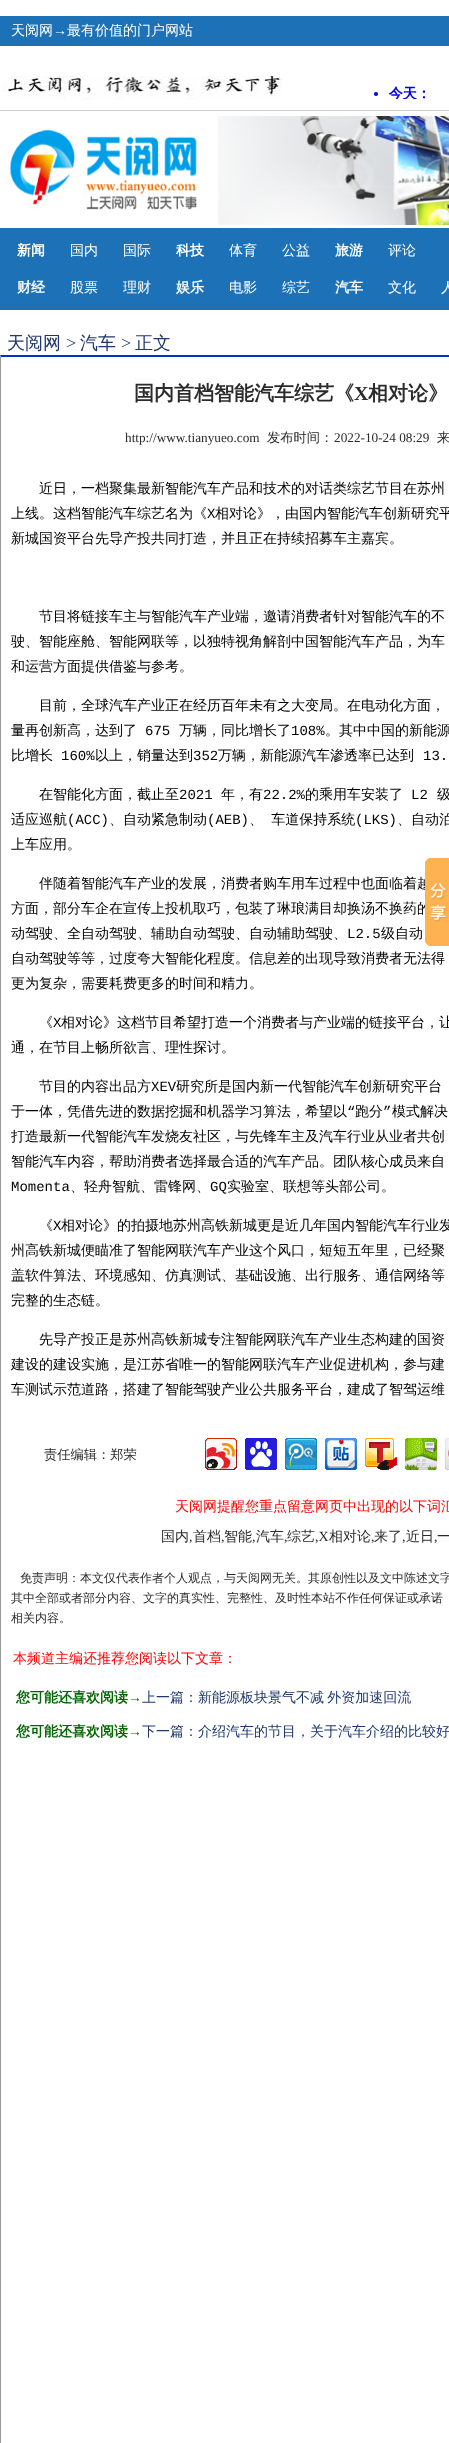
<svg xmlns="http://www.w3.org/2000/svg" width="449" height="2443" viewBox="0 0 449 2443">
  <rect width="100%" height="100%" fill="#ffffff"/>
  <rect x="0" y="16" width="449" height="30" fill="#1d71b7"/>
  <text x="11" y="35" font-family="WenQuanYi Zen Hei" font-size="14" font-weight="500" fill="#ffffff">天阅网</text>
  <text x="53" y="35" font-family="Liberation Serif" font-size="14" fill="#ffffff">→</text>
  <text x="67" y="35" font-family="WenQuanYi Zen Hei" font-size="14" font-weight="500" fill="#ffffff">最有价值的门户网站</text>
  <rect x="0" y="110" width="449" height="1" fill="#cccccc"/>
  <image x="3" y="76" width="279" height="24" href="img1.png"/>
  <image x="374" y="86" width="52" height="13" href="img2.png"/>
  <image x="10" y="129" width="187" height="81" href="img3.png"/>
  <image x="218" y="116" width="231" height="109" href="img4.png"/>
  <rect x="0" y="228" width="449" height="82" fill="#1d71b7"/>
  <text x="17" y="255" font-family="WenQuanYi Zen Hei" font-size="14" font-weight="bold" fill="#ffffff">新闻</text>
  <text x="70" y="255" font-family="WenQuanYi Zen Hei" font-size="14" font-weight="500" fill="#ffffff">国内</text>
  <text x="123" y="255" font-family="WenQuanYi Zen Hei" font-size="14" font-weight="500" fill="#ffffff">国际</text>
  <text x="176" y="255" font-family="WenQuanYi Zen Hei" font-size="14" font-weight="bold" fill="#ffffff">科技</text>
  <text x="229" y="255" font-family="WenQuanYi Zen Hei" font-size="14" font-weight="500" fill="#ffffff">体育</text>
  <text x="282" y="255" font-family="WenQuanYi Zen Hei" font-size="14" font-weight="500" fill="#ffffff">公益</text>
  <text x="335" y="255" font-family="WenQuanYi Zen Hei" font-size="14" font-weight="bold" fill="#ffffff">旅游</text>
  <text x="388" y="255" font-family="WenQuanYi Zen Hei" font-size="14" font-weight="500" fill="#ffffff">评论</text>
  <text x="17" y="292" font-family="WenQuanYi Zen Hei" font-size="14" font-weight="bold" fill="#ffffff">财经</text>
  <text x="70" y="292" font-family="WenQuanYi Zen Hei" font-size="14" font-weight="500" fill="#ffffff">股票</text>
  <text x="123" y="292" font-family="WenQuanYi Zen Hei" font-size="14" font-weight="500" fill="#ffffff">理财</text>
  <text x="176" y="292" font-family="WenQuanYi Zen Hei" font-size="14" font-weight="bold" fill="#ffffff">娱乐</text>
  <text x="229" y="292" font-family="WenQuanYi Zen Hei" font-size="14" font-weight="500" fill="#ffffff">电影</text>
  <text x="282" y="292" font-family="WenQuanYi Zen Hei" font-size="14" font-weight="500" fill="#ffffff">综艺</text>
  <text x="335" y="292" font-family="WenQuanYi Zen Hei" font-size="14" font-weight="bold" fill="#ffffff">汽车</text>
  <text x="388" y="292" font-family="WenQuanYi Zen Hei" font-size="14" font-weight="500" fill="#ffffff">文化</text>
  <text x="441" y="292" font-family="WenQuanYi Zen Hei" font-size="14" font-weight="500" fill="#ffffff">人</text>
  <text x="7" y="349" font-family="WenQuanYi Zen Hei" font-size="18" font-weight="500" fill="#1f376d">天阅网</text>
  <text x="66" y="349" font-family="Liberation Serif" font-size="18" fill="#1f376d">&gt;</text>
  <text x="80" y="349" font-family="WenQuanYi Zen Hei" font-size="18" font-weight="500" fill="#1f376d">汽车</text>
  <text x="121" y="349" font-family="Liberation Serif" font-size="18" fill="#1f376d">&gt;</text>
  <text x="135" y="349" font-family="WenQuanYi Zen Hei" font-size="18" font-weight="500" fill="#1f376d">正文</text>
  <path d="M0 355H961L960 357H1Z" fill="#0033cc"/>
  <path d="M0 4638V355L1 357V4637Z" fill="#999999"/>
  <text x="134" y="400" font-family="WenQuanYi Zen Hei" font-size="20" font-weight="bold" fill="#2b2b2b">国内首档智能汽车综艺《</text>
  <text x="354" y="400" font-family="Liberation Serif" font-size="20" font-weight="bold" fill="#2b2b2b">X</text>
  <text x="368" y="400" font-family="WenQuanYi Zen Hei" font-size="20" font-weight="bold" fill="#2b2b2b">相对论》</text>
  <text x="125" y="442" font-family="Liberation Serif" font-size="13.25" fill="#2b2b2b">http://www.tianyueo.com</text>
  <text x="267" y="442" font-family="WenQuanYi Zen Hei" font-size="13.25" font-weight="500" fill="#2b2b2b">发布时间：</text>
  <text x="334" y="442" font-family="Liberation Serif" font-size="13.25" fill="#2b2b2b">2022-10-24 08:29</text>
  <text x="437" y="442" font-family="WenQuanYi Zen Hei" font-size="13.25" font-weight="500" fill="#2b2b2b">来</text>
  <text x="39" y="493" font-family="WenQuanYi Zen Hei" font-size="14" font-weight="500" fill="#000000">近日，一档聚集最新智能汽车产品和技术的对话类综艺节目在苏州</text>
  <text x="11" y="518" font-family="WenQuanYi Zen Hei" font-size="14" font-weight="500" fill="#000000">上线。这档智能汽车综艺名为《</text>
  <text x="207" y="518" font-family="Liberation Mono" font-size="14" fill="#000000">X</text>
  <text x="215" y="518" font-family="WenQuanYi Zen Hei" font-size="14" font-weight="500" fill="#000000">相对论》，由国内智能汽车创新研究平</text>
  <text x="11" y="543" font-family="WenQuanYi Zen Hei" font-size="14" font-weight="500" fill="#000000">新城国资平台先导产投共同打造，并且正在持续招募车主嘉宾。</text>
  <text x="39" y="621" font-family="WenQuanYi Zen Hei" font-size="14" font-weight="500" fill="#000000">节目将链接车主与智能汽车产业端，邀请消费者针对智能汽车的不</text>
  <text x="11" y="646" font-family="WenQuanYi Zen Hei" font-size="14" font-weight="500" fill="#000000">驶、智能座舱、智能网联等，以独特视角解剖中国智能汽车产品，为车</text>
  <text x="11" y="671" font-family="WenQuanYi Zen Hei" font-size="14" font-weight="500" fill="#000000">和运营方面提供借鉴与参考。</text>
  <text x="39" y="710" font-family="WenQuanYi Zen Hei" font-size="14" font-weight="500" fill="#000000">目前，全球汽车产业正在经历百年未有之大变局。在电动化方面，</text>
  <text x="11" y="735" font-family="WenQuanYi Zen Hei" font-size="14" font-weight="500" fill="#000000">量再创新高，达到了</text>
  <text x="145" y="735" font-family="Liberation Mono" font-size="14" fill="#000000">675</text>
  <text x="179" y="735" font-family="WenQuanYi Zen Hei" font-size="14" font-weight="500" fill="#000000">万辆，同比增长了</text>
  <text x="291" y="735" font-family="Liberation Mono" font-size="14" fill="#000000">108%</text>
  <text x="325" y="735" font-family="WenQuanYi Zen Hei" font-size="14" font-weight="500" fill="#000000">。其中中国的新能源</text>
  <text x="11" y="760" font-family="WenQuanYi Zen Hei" font-size="14" font-weight="500" fill="#000000">比增长</text>
  <text x="61" y="760" font-family="Liberation Mono" font-size="14" fill="#000000">160%</text>
  <text x="95" y="760" font-family="WenQuanYi Zen Hei" font-size="14" font-weight="500" fill="#000000">以上，销量达到</text>
  <text x="193" y="760" font-family="Liberation Mono" font-size="14" fill="#000000">352</text>
  <text x="218" y="760" font-family="WenQuanYi Zen Hei" font-size="14" font-weight="500" fill="#000000">万辆，新能源汽车渗透率已达到</text>
  <text x="423" y="760" font-family="Liberation Mono" font-size="14" fill="#000000">13.</text>
  <text x="39" y="799" font-family="WenQuanYi Zen Hei" font-size="14" font-weight="500" fill="#000000">在智能化方面，截止至</text>
  <text x="179" y="799" font-family="Liberation Mono" font-size="14" fill="#000000">2021</text>
  <text x="221" y="799" font-family="WenQuanYi Zen Hei" font-size="14" font-weight="500" fill="#000000">年，有</text>
  <text x="263" y="799" font-family="Liberation Mono" font-size="14" fill="#000000">22.2%</text>
  <text x="305" y="799" font-family="WenQuanYi Zen Hei" font-size="14" font-weight="500" fill="#000000">的乘用车安装了</text>
  <text x="411" y="799" font-family="Liberation Mono" font-size="14" fill="#000000">L2</text>
  <text x="437" y="799" font-family="WenQuanYi Zen Hei" font-size="14" font-weight="500" fill="#000000">级</text>
  <text x="11" y="824" font-family="WenQuanYi Zen Hei" font-size="14" font-weight="500" fill="#000000">适应巡航</text>
  <text x="67" y="824" font-family="Liberation Mono" font-size="14" fill="#000000">(ACC)</text>
  <text x="109" y="824" font-family="WenQuanYi Zen Hei" font-size="14" font-weight="500" fill="#000000">、自动紧急制动</text>
  <text x="207" y="824" font-family="Liberation Mono" font-size="14" fill="#000000">(AEB)</text>
  <text x="249" y="824" word-spacing="4" font-family="WenQuanYi Zen Hei" font-size="14" font-weight="500" fill="#000000">、 车道保持系统</text>
  <text x="355" y="824" font-family="Liberation Mono" font-size="14" fill="#000000">(LKS)</text>
  <text x="397" y="824" font-family="WenQuanYi Zen Hei" font-size="14" font-weight="500" fill="#000000">、自动泊</text>
  <text x="11" y="849" font-family="WenQuanYi Zen Hei" font-size="14" font-weight="500" fill="#000000">上车应用。</text>
  <text x="39" y="888" font-family="WenQuanYi Zen Hei" font-size="14" font-weight="500" fill="#000000">伴随着智能汽车产业的发展，消费者购车用车过程中也面临着越</text>
  <text x="11" y="913" font-family="WenQuanYi Zen Hei" font-size="14" font-weight="500" fill="#000000">方面，部分车企在宣传上投机取巧，包装了琳琅满目却换汤不换药的</text>
  <text x="11" y="938" font-family="WenQuanYi Zen Hei" font-size="14" font-weight="500" fill="#000000">动驾驶、全自动驾驶、辅助自动驾驶、自动辅助驾驶、</text>
  <text x="347" y="938" font-family="Liberation Mono" font-size="14" fill="#000000">L2.5</text>
  <text x="381" y="938" font-family="WenQuanYi Zen Hei" font-size="14" font-weight="500" fill="#000000">级自动</text>
  <text x="11" y="963" font-family="WenQuanYi Zen Hei" font-size="14" font-weight="500" fill="#000000">自动驾驶等等，过度夸大智能化程度。信息差的出现导致消费者无法得</text>
  <text x="11" y="988" font-family="WenQuanYi Zen Hei" font-size="14" font-weight="500" fill="#000000">更为复杂，需要耗费更多的时间和精力。</text>
  <text x="39" y="1027" font-family="WenQuanYi Zen Hei" font-size="14" font-weight="500" fill="#000000">《</text>
  <text x="53" y="1027" font-family="Liberation Mono" font-size="14" fill="#000000">X</text>
  <text x="61" y="1027" font-family="WenQuanYi Zen Hei" font-size="14" font-weight="500" fill="#000000">相对论》这档节目希望打造一个消费者与产业端的链接平台，让</text>
  <text x="11" y="1052" font-family="WenQuanYi Zen Hei" font-size="14" font-weight="500" fill="#000000">通，在节目上畅所欲言、理性探讨。</text>
  <text x="39" y="1091" font-family="WenQuanYi Zen Hei" font-size="14" font-weight="500" fill="#000000">节目的内容出品方</text>
  <text x="151" y="1091" font-family="Liberation Mono" font-size="14" fill="#000000">XEV</text>
  <text x="176" y="1091" font-family="WenQuanYi Zen Hei" font-size="14" font-weight="500" fill="#000000">研究所是国内新一代智能汽车创新研究平台</text>
  <text x="11" y="1116" font-family="WenQuanYi Zen Hei" font-size="14" font-weight="500" fill="#000000">于一体，凭借先进的数据挖掘和机器学习算法，希望以</text>
  <text x="347" y="1116" font-family="Liberation Mono" font-size="14" fill="#000000">“</text>
  <text x="355" y="1116" font-family="WenQuanYi Zen Hei" font-size="14" font-weight="500" fill="#000000">跑分</text>
  <text x="383" y="1116" font-family="Liberation Mono" font-size="14" fill="#000000">”</text>
  <text x="392" y="1116" font-family="WenQuanYi Zen Hei" font-size="14" font-weight="500" fill="#000000">模式解决</text>
  <text x="11" y="1141" font-family="WenQuanYi Zen Hei" font-size="14" font-weight="500" fill="#000000">打造最新一代智能汽车发烧友社区，与先锋车主及汽车行业从业者共创</text>
  <text x="11" y="1166" font-family="WenQuanYi Zen Hei" font-size="14" font-weight="500" fill="#000000">智能汽车内容，帮助消费者选择最合适的汽车产品。团队核心成员来自</text>
  <text x="11" y="1191" font-family="Liberation Mono" font-size="14" fill="#000000">Momenta</text>
  <text x="70" y="1191" font-family="WenQuanYi Zen Hei" font-size="14" font-weight="500" fill="#000000">、轻舟智航、雷锋网、</text>
  <text x="210" y="1191" font-family="Liberation Mono" font-size="14" fill="#000000">GQ</text>
  <text x="227" y="1191" font-family="WenQuanYi Zen Hei" font-size="14" font-weight="500" fill="#000000">实验室、联想等头部公司。</text>
  <text x="39" y="1230" font-family="WenQuanYi Zen Hei" font-size="14" font-weight="500" fill="#000000">《</text>
  <text x="53" y="1230" font-family="Liberation Mono" font-size="14" fill="#000000">X</text>
  <text x="61" y="1230" font-family="WenQuanYi Zen Hei" font-size="14" font-weight="500" fill="#000000">相对论》的拍摄地苏州高铁新城更是近几年国内智能汽车行业发</text>
  <text x="11" y="1255" font-family="WenQuanYi Zen Hei" font-size="14" font-weight="500" fill="#000000">州高铁新城便瞄准了智能网联汽车产业这个风口，短短五年里，已经聚</text>
  <text x="11" y="1280" font-family="WenQuanYi Zen Hei" font-size="14" font-weight="500" fill="#000000">盖软件算法、环境感知、仿真测试、基础设施、出行服务、通信网络等</text>
  <text x="11" y="1305" font-family="WenQuanYi Zen Hei" font-size="14" font-weight="500" fill="#000000">完整的生态链。</text>
  <text x="39" y="1344" font-family="WenQuanYi Zen Hei" font-size="14" font-weight="500" fill="#000000">先导产投正是苏州高铁新城专注智能网联汽车产业生态构建的国资</text>
  <text x="11" y="1369" font-family="WenQuanYi Zen Hei" font-size="14" font-weight="500" fill="#000000">建设的建设实施，是江苏省唯一的智能网联汽车产业促进机构，参与建</text>
  <text x="11" y="1394" font-family="WenQuanYi Zen Hei" font-size="14" font-weight="500" fill="#000000">车测试示范道路，搭建了智能驾驶产业公共服务平台，建成了智驾运维</text>
  <text x="44" y="1459" font-family="WenQuanYi Zen Hei" font-size="13.25" font-weight="500" fill="#2b2b2b">责任编辑：郑荣</text>
  <image x="205" y="1438" width="32" height="32" href="img5.png"/>
  <image x="245" y="1438" width="32" height="32" href="img6.png"/>
  <image x="285" y="1438" width="32" height="32" href="img7.png"/>
  <image x="325" y="1438" width="32" height="32" href="img8.png"/>
  <image x="365" y="1438" width="32" height="32" href="img9.png"/>
  <image x="405" y="1438" width="32" height="32" href="img10.png"/>
  <image x="445" y="1438" width="4" height="32" href="img11.png"/>
  <text x="175" y="1511" font-family="WenQuanYi Zen Hei" font-size="14" font-weight="500" fill="#ff0000">天阅网提醒您重点留意网页中出现的以下词汇</text>
  <text x="161" y="1541" font-family="WenQuanYi Zen Hei" font-size="14" font-weight="500" fill="#2b2b2b">国内</text>
  <text x="193" y="1541" font-family="WenQuanYi Zen Hei" font-size="14" font-weight="500" fill="#2b2b2b">首档</text>
  <text x="224" y="1541" font-family="WenQuanYi Zen Hei" font-size="14" font-weight="500" fill="#2b2b2b">智能</text>
  <text x="256" y="1541" font-family="WenQuanYi Zen Hei" font-size="14" font-weight="500" fill="#2b2b2b">汽车</text>
  <text x="287" y="1541" font-family="WenQuanYi Zen Hei" font-size="14" font-weight="500" fill="#2b2b2b">综艺</text>
  <text x="315" y="1541" font-family="Liberation Serif" font-size="14" fill="#2b2b2b">,X</text>
  <text x="329" y="1541" font-family="WenQuanYi Zen Hei" font-size="14" font-weight="500" fill="#2b2b2b">相对论</text>
  <text x="374" y="1541" font-family="WenQuanYi Zen Hei" font-size="14" font-weight="500" fill="#2b2b2b">来了</text>
  <text x="406" y="1541" font-family="WenQuanYi Zen Hei" font-size="14" font-weight="500" fill="#2b2b2b">近日</text>
  <text x="437" y="1541" font-family="WenQuanYi Zen Hei" font-size="14" font-weight="500" fill="#2b2b2b">一</text>
  <text x="189" y="1541" font-family="Liberation Serif" font-size="14" fill="#2b2b2b">,</text>
  <text x="221" y="1541" font-family="Liberation Serif" font-size="14" fill="#2b2b2b">,</text>
  <text x="252" y="1541" font-family="Liberation Serif" font-size="14" fill="#2b2b2b">,</text>
  <text x="284" y="1541" font-family="Liberation Serif" font-size="14" fill="#2b2b2b">,</text>
  <text x="371" y="1541" font-family="Liberation Serif" font-size="14" fill="#2b2b2b">,</text>
  <text x="402" y="1541" font-family="Liberation Serif" font-size="14" fill="#2b2b2b">,</text>
  <text x="434" y="1541" font-family="Liberation Serif" font-size="14" fill="#2b2b2b">,</text>
  <text x="20" y="1582" font-family="WenQuanYi Zen Hei" font-size="12" font-weight="500" fill="#2b2b2b">免责声明：本文仅代表作者个人观点，与天阅网无关。其原创性以及文中陈述文字</text>
  <text x="11" y="1602" font-family="WenQuanYi Zen Hei" font-size="12" font-weight="500" fill="#2b2b2b">其中全部或者部分内容、文字的真实性、完整性、及时性本站不作任何保证或承诺</text>
  <text x="11" y="1622" font-family="WenQuanYi Zen Hei" font-size="12" font-weight="500" fill="#2b2b2b">相关内容。</text>
  <text x="13" y="1663" font-family="WenQuanYi Zen Hei" font-size="14" font-weight="500" fill="#ff0000">本频道主编还推荐您阅读以下文章：</text>
  <text x="16" y="1702" font-family="WenQuanYi Zen Hei" font-size="14" font-weight="bold" fill="#006600">您可能还喜欢阅读</text>
  <text x="128" y="1702" font-family="Liberation Serif" font-size="14" font-weight="bold" fill="#006600">→</text>
  <text x="142" y="1702" font-family="WenQuanYi Zen Hei" font-size="14" font-weight="500" fill="#1f376d">上一篇：</text>
  <text x="198" y="1702" word-spacing="-1" font-family="WenQuanYi Zen Hei" font-size="14" font-weight="500" fill="#1f376d">新能源板块景气不减 外资加速回流</text>
  <text x="16" y="1736" font-family="WenQuanYi Zen Hei" font-size="14" font-weight="bold" fill="#006600">您可能还喜欢阅读</text>
  <text x="128" y="1736" font-family="Liberation Serif" font-size="14" font-weight="bold" fill="#006600">→</text>
  <text x="142" y="1736" font-family="WenQuanYi Zen Hei" font-size="14" font-weight="500" fill="#1f376d">下一篇：介绍汽车的节目，关于汽车介绍的比较好</text>
  <image x="425" y="858" width="24" height="88" href="img12.png"/>
</svg>
